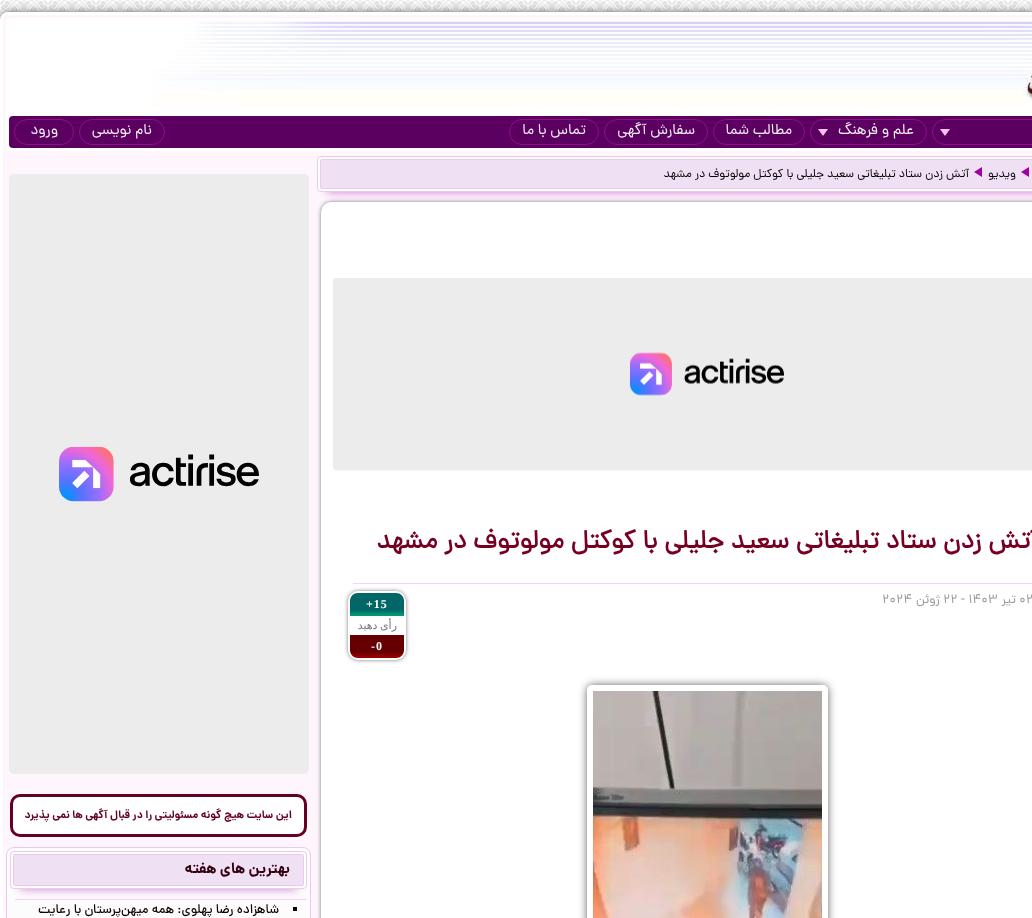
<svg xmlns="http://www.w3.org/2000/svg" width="1032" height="918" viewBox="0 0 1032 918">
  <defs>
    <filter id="blur1" x="-50%" y="-200%" width="200%" height="500%"><feGaussianBlur stdDeviation="4"/></filter>
    <filter id="blur2" x="-50%" y="-200%" width="200%" height="500%"><feGaussianBlur stdDeviation="5"/></filter>
    <filter id="blur3" x="-50%" y="-200%" width="200%" height="500%"><feGaussianBlur stdDeviation="2.5"/></filter>
    <linearGradient id="g1" gradientUnits="userSpaceOnUse" x1="377" y1="593" x2="377" y2="616"><stop offset="0" stop-color="#006666"/><stop offset="0.75" stop-color="#006666"/><stop offset="0.95" stop-color="#009977"/><stop offset="1" stop-color="#009977"/></linearGradient>
    <linearGradient id="g2" gradientUnits="userSpaceOnUse" x1="377" y1="635" x2="377" y2="658"><stop offset="0" stop-color="#660000"/><stop offset="0.75" stop-color="#660000"/><stop offset="0.95" stop-color="#990000"/><stop offset="1" stop-color="#990000"/></linearGradient>
  </defs>
  <rect width="100%" height="100%" fill="#ffffff"/>
  <image x="0" y="0" width="1032" height="20" href="img1.png"/>
  <rect x="1" y="13" width="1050" height="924" rx="7" fill="#000000" fill-opacity="0.75" filter="url(#blur1)"/>
  <rect x="1.5" y="13.5" width="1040" height="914" rx="6.5" fill="#fff5fd" stroke="#ffffff" stroke-width="3"/>
  <rect x="6" y="18" width="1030" height="133" rx="4" fill="#ffffff"/>
  <image x="151" y="21" width="881" height="86" href="img2.png"/>
  <rect x="9" y="116" width="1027" height="32" rx="4" fill="#5b0061"/>
  <rect x="932.5" y="119.5" width="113" height="25" rx="12.5" fill="none" stroke="#8f0f89"/>
  <path d="M940 129H950L945 136Z" fill="#f7c2ee"/>
  <rect x="810.5" y="119.5" width="116" height="25" rx="12.5" fill="none" stroke="#8f0f89"/>
  <text x="914" y="134" font-family="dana" font-size="15" direction="rtl" fill="#f7f2f7">علم و فرهنگ</text>
  <path d="M818 129H828L823 136Z" fill="#f7c2ee"/>
  <rect x="713.5" y="119.5" width="91" height="25" rx="12.5" fill="none" stroke="#8f0f89"/>
  <text x="792" y="134" font-family="dana" font-size="15" direction="rtl" fill="#f7f2f7">مطالب شما</text>
  <rect x="604.5" y="119.5" width="103" height="25" rx="12.5" fill="none" stroke="#8f0f89"/>
  <text x="695" y="134" font-family="dana" font-size="15" direction="rtl" fill="#f7f2f7">سفارش آگهی</text>
  <rect x="509.5" y="119.5" width="89" height="25" rx="12.5" fill="none" stroke="#8f0f89"/>
  <text x="586" y="134" font-family="dana" font-size="15" direction="rtl" fill="#f7f2f7">تماس با ما</text>
  <rect x="79.5" y="119.5" width="85" height="25" rx="12.5" fill="none" stroke="#8f0f89"/>
  <text x="152" y="134" font-family="dana" font-size="15" direction="rtl" fill="#f7f2f7">نام نویسی</text>
  <rect x="14.5" y="119.5" width="59" height="25" rx="12.5" fill="none" stroke="#8f0f89"/>
  <text x="58" y="134" font-family="dana" font-size="15" direction="rtl" fill="#f7f2f7">ورود</text>
  <rect x="327" y="176" width="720" height="16" fill="#a205ac" fill-opacity="0.5" filter="url(#blur2)"/>
  <rect x="317.5" y="156.5" width="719" height="35" rx="3.5" fill="#ffffff" stroke="#ebcbed"/>
  <rect x="320.5" y="159.5" width="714" height="29" rx="1.5" fill="#f0e0f3" stroke="#ebcbed"/>
  <path d="M1029 167V177L1021 172Z" fill="#a300a3"/>
  <text x="1016" y="177" font-family="dana" font-size="12" direction="rtl" fill="#000000">ویدیو</text>
  <path d="M982 167V177L974 172Z" fill="#a300a3"/>
  <text x="969" y="177" font-family="dana" font-size="12" direction="rtl" fill="#000000">آتش زدن ستاد تبلیغاتی سعید جلیلی با کوکتل مولوتوف در مشهد</text>
  <rect x="322" y="203" width="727" height="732" rx="9" fill="#000000" fill-opacity="0.75" filter="url(#blur3)"/>
  <rect x="322" y="203" width="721" height="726" rx="9" fill="#ffffff" stroke="#ffffff" stroke-width="2"/>
  <image x="333" y="278" width="699" height="193" href="img3.png"/>
  <rect x="353" y="583" width="679" height="1" fill="#ffccff"/>
  <text x="1038" y="548" font-family="dana" font-size="26" font-weight="bold" direction="rtl" fill="#770022">آتش زدن ستاد تبلیغاتی سعید جلیلی با کوکتل مولوتوف در مشهد</text>
  <text x="1019" y="603" font-family="dana" font-size="13" fill="#999999">۰۲</text>
  <text x="1016" y="603" font-family="dana" font-size="13" direction="rtl" fill="#999999">تیر</text>
  <text x="943" y="603" font-family="dana" font-size="13" fill="#999999">۲۲ - ۱۴۰۳</text>
  <text x="940" y="603" font-family="dana" font-size="13" direction="rtl" fill="#999999">ژوئن</text>
  <text x="882" y="603" font-family="dana" font-size="13" fill="#999999">۲۰۲۴</text>
  <rect x="349" y="592" width="56" height="67" rx="9" fill="#000000" fill-opacity="0.75" filter="url(#blur3)"/>
  <rect x="348" y="591" width="58" height="69" rx="10" fill="#ffffff"/>
  <path d="M358 593H396C400.5 593 404 596.5 404 601V616H350V601C350 596.5 353.5 593 358 593Z" fill="url(#g1)"/>
  <text x="366" y="608" font-family="Liberation Serif" font-size="12" font-weight="bold" letter-spacing="1" fill="#ffffff">+15</text>
  <text x="397" y="629" word-spacing="-1" font-family="DejaVu Sans" font-size="11" direction="rtl" fill="#777777">رأی دهید</text>
  <path d="M350 635H404V650C404 654.5 400.5 658 396 658H358C353.5 658 350 654.5 350 650Z" fill="url(#g2)"/>
  <text x="371" y="650" font-family="Liberation Serif" font-size="12" font-weight="bold" letter-spacing="1" fill="#ffffff">-0</text>
  <rect x="588" y="686" width="239" height="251" rx="4" fill="#000000" fill-opacity="0.75" filter="url(#blur2)"/>
  <rect x="590" y="688" width="235" height="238" rx="2" fill="none" stroke="#ffffff" stroke-width="6"/>
  <image x="593" y="691" width="229" height="227" href="img4.png"/>
  <image x="9" y="174" width="300" height="600" href="img5.png"/>
  <rect x="11.5" y="795.5" width="294" height="40" rx="8.5" fill="#ffffff" stroke="#660022" stroke-width="3"/>
  <text x="292" y="818" font-family="'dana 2'" font-size="11" font-weight="bold" direction="rtl" fill="#660022">این سایت هیچ گونه مسئولیتی را در قبال آگهی ها نمی پذیرد</text>
  <rect x="6.5" y="847.5" width="304" height="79" rx="7.5" fill="#fcfcfc" stroke="#ebcbed"/>
  <rect x="20" y="871" width="277" height="18" fill="#a205ac" fill-opacity="0.5" filter="url(#blur2)"/>
  <rect x="10.5" y="851.5" width="296" height="37" rx="3.5" fill="#ffffff" stroke="#ebcbed"/>
  <rect x="13.5" y="854.5" width="290" height="31" rx="1.5" fill="#f0e0f3" stroke="#ebcbed"/>
  <text x="290" y="873" font-family="'dana 2'" font-size="15" font-weight="bold" direction="rtl" fill="#330011">بهترین های هفته</text>
  <rect x="15" y="899" width="292" height="1" fill="#ffccff"/>
  <rect x="293" y="907" width="4" height="4" fill="#0d0101"/>
  <text x="279" y="913" font-family="dana" font-size="13" font-weight="500" direction="rtl" fill="#0d0101">شاهزاده رضا پهلوی: همه میهن‌پرستان با رعایت</text>
</svg>
